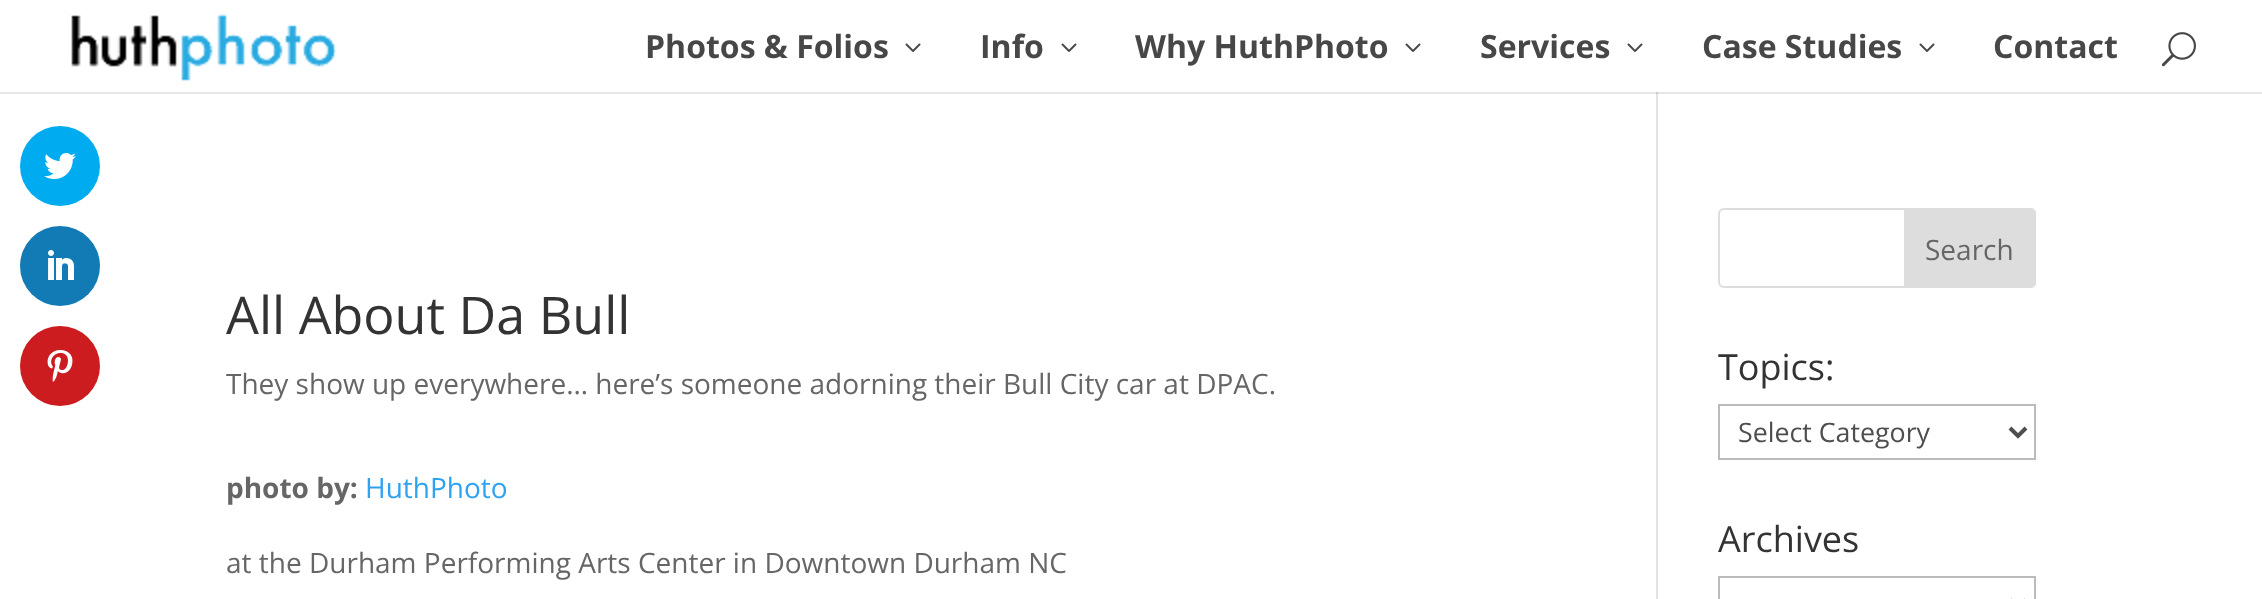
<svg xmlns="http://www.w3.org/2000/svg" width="2262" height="599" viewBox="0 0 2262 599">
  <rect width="100%" height="100%" fill="#ffffff"/>
  <rect x="0" y="92" width="2262" height="2" fill="#e6e6e6"/>
  <circle cx="60" cy="166" r="40" fill="#00abf0"/>
  <image x="44" y="153" width="32" height="26" href="img1.png"/>
  <circle cx="60" cy="266" r="40" fill="#127bb6"/>
  <image x="48" y="250" width="26" height="30" href="img2.png"/>
  <circle cx="60" cy="366" r="40" fill="#cd1c1f"/>
  <image x="47" y="350" width="26" height="32" href="img3.png"/>
  <image x="71" y="13" width="266" height="68" href="img4.png"/>
  <text x="645" y="58" font-family="Open Sans" font-size="32" font-weight="bold" fill="#474747">Photos &amp; Folios</text>
  <image x="905" y="43" width="16" height="9" href="img5.png"/>
  <text x="980" y="58" font-family="Open Sans" font-size="32" font-weight="bold" fill="#474747">Info</text>
  <image x="1061" y="43" width="16" height="9" href="img5.png"/>
  <text x="1135" y="58" font-family="Open Sans" font-size="32" font-weight="bold" fill="#474747">Why HuthPhoto</text>
  <image x="1405" y="43" width="16" height="9" href="img5.png"/>
  <text x="1480" y="58" font-family="Open Sans" font-size="32" font-weight="bold" fill="#474747">Services</text>
  <image x="1627" y="43" width="16" height="9" href="img5.png"/>
  <text x="1702" y="58" font-family="Open Sans" font-size="32" font-weight="bold" fill="#474747">Case Studies</text>
  <image x="1919" y="43" width="16" height="9" href="img5.png"/>
  <text x="1993" y="58" font-family="Open Sans" font-size="32" font-weight="bold" fill="#474747">Contact</text>
  <image x="2161" y="32" width="35" height="35" href="img6.png"/>
  <rect x="1656" y="92" width="2" height="507" fill="#e2e2e2"/>
  <rect x="1656" y="92" width="2" height="2" fill="#cbcbcb"/>
  <text x="226" y="334" font-family="Open Sans" font-size="52" fill="#333333">All About Da Bull</text>
  <text x="226" y="394" font-family="Open Sans" font-size="28" fill="#666666">They show up everywhere… here’s someone adorning their Bull City car at DPAC.</text>
  <text x="226" y="498" font-family="Open Sans" font-size="28" font-weight="bold" fill="#666666">photo by:</text>
  <text x="365" y="498" font-family="Open Sans" font-size="28" fill="#2ea3f2">HuthPhoto</text>
  <text x="226" y="573" font-family="Open Sans" font-size="28" fill="#666666">at the Durham Performing Arts Center in Downtown Durham NC</text>
  <rect x="1719" y="209" width="316" height="78" rx="5" fill="none" stroke="#dddddd" stroke-width="2"/>
  <path d="M1905 209H2030C2033 209 2035 211 2035 214V282C2035 285 2033 287 2030 287H1905Z" fill="#dddddd" stroke="#dddddd" stroke-width="2"/>
  <text x="1925" y="260" font-family="Open Sans" font-size="28" fill="#666666">Search</text>
  <text x="1718" y="380" font-family="Open Sans" font-size="36" fill="#333333">Topics:</text>
  <rect x="1719" y="405" width="316" height="54" fill="none" stroke="#bbbbbb" stroke-width="2"/>
  <path d="M2010 428L2018 436L2026 428" fill="none" stroke="#4e4e4e" stroke-width="4"/>
  <text x="1738" y="442" font-family="Open Sans" font-size="26.75" fill="#4e4e4e">Select Category</text>
  <text x="1718" y="552" font-family="Open Sans" font-size="36" fill="#333333">Archives</text>
  <rect x="1719" y="577" width="316" height="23" fill="none" stroke="#bbbbbb" stroke-width="2"/>
  <path d="M2010 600L2018 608L2026 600" fill="none" stroke="#4e4e4e" stroke-width="4"/>
</svg>
